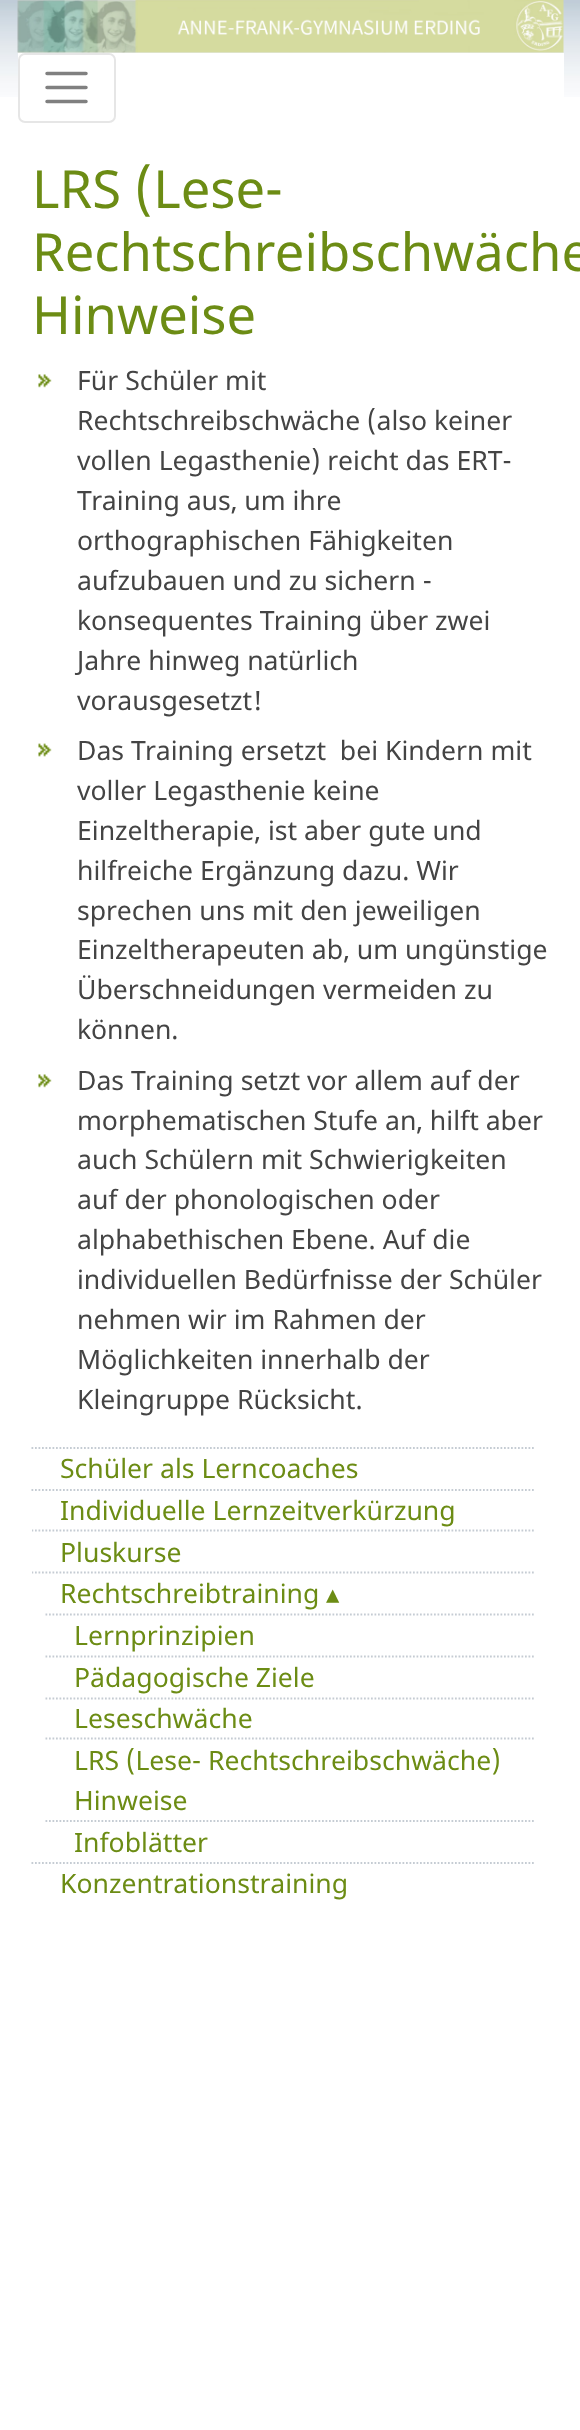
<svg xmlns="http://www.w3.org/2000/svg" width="580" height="2430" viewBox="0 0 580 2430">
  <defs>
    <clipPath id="clip1"><rect x="32" y="1447" width="518" height="457"/></clipPath>
  </defs>
  <rect width="100%" height="100%" fill="#ffffff"/>
  <image x="0" y="0" width="580" height="97" href="img1.png"/>
  <image x="17" y="0" width="547" height="53" href="img2.png"/>
  <rect x="18" y="53" width="546" height="44" fill="#ffffff"/>
  <rect x="19" y="54" width="96" height="68" rx="6" fill="none" stroke="#e6e6e6" stroke-width="2"/>
  <path d="M47 73.5H86M47 87.5H86M47 101.5H86" fill="none" stroke="#808080" stroke-width="3.5" stroke-linecap="round"/>
  <text x="32" y="208" font-family="Noto Sans" font-size="52.5" fill="#6c8c14">LRS (Lese-</text>
  <text x="32" y="271" font-family="Noto Sans" font-size="52.5" fill="#6c8c14">Rechtschreibschwäche</text>
  <text x="32" y="334" font-family="Noto Sans" font-size="52.5" fill="#6c8c14">Hinweise</text>
  <image x="38" y="374" width="14" height="14" href="img3.png"/>
  <text x="77" y="390" font-family="Noto Sans" font-size="26.6" fill="#444444">Für Schüler mit</text>
  <text x="77" y="430" font-family="Noto Sans" font-size="26.6" fill="#444444">Rechtschreibschwäche (also keiner</text>
  <text x="77" y="470" font-family="Noto Sans" font-size="26.6" fill="#444444">vollen Legasthenie) reicht das ERT-</text>
  <text x="77" y="510" font-family="Noto Sans" font-size="26.6" fill="#444444">Training aus, um ihre</text>
  <text x="77" y="550" font-family="Noto Sans" font-size="26.6" fill="#444444">orthographischen Fähigkeiten</text>
  <text x="77" y="590" font-family="Noto Sans" font-size="26.6" fill="#444444">aufzubauen und zu sichern -</text>
  <text x="77" y="630" font-family="Noto Sans" font-size="26.6" fill="#444444">konsequentes Training über zwei</text>
  <text x="77" y="670" font-family="Noto Sans" font-size="26.6" fill="#444444">Jahre hinweg natürlich</text>
  <text x="77" y="710" font-family="Noto Sans" font-size="26.6" fill="#444444">vorausgesetzt!</text>
  <image x="38" y="743" width="14" height="14" href="img4.png"/>
  <text x="77" y="760" font-family="Noto Sans" font-size="26.6" fill="#444444" xml:space="preserve">Das Training ersetzt  bei Kindern mit</text>
  <text x="77" y="800" font-family="Noto Sans" font-size="26.6" fill="#444444">voller Legasthenie keine</text>
  <text x="77" y="840" font-family="Noto Sans" font-size="26.6" fill="#444444">Einzeltherapie, ist aber gute und</text>
  <text x="77" y="880" font-family="Noto Sans" font-size="26.6" fill="#444444">hilfreiche Ergänzung dazu. Wir</text>
  <text x="77" y="920" font-family="Noto Sans" font-size="26.6" fill="#444444">sprechen uns mit den jeweiligen</text>
  <text x="77" y="959" font-family="Noto Sans" font-size="26.6" fill="#444444">Einzeltherapeuten ab, um ungünstige</text>
  <text x="77" y="999" font-family="Noto Sans" font-size="26.6" fill="#444444">Überschneidungen vermeiden zu</text>
  <text x="77" y="1039" font-family="Noto Sans" font-size="26.6" fill="#444444">können.</text>
  <image x="38" y="1074" width="14" height="14" href="img3.png"/>
  <text x="77" y="1090" font-family="Noto Sans" font-size="26.6" fill="#444444">Das Training setzt vor allem auf der</text>
  <text x="77" y="1130" font-family="Noto Sans" font-size="26.6" fill="#444444">morphematischen Stufe an, hilft aber</text>
  <text x="77" y="1169" font-family="Noto Sans" font-size="26.6" fill="#444444">auch Schülern mit Schwierigkeiten</text>
  <text x="77" y="1209" font-family="Noto Sans" font-size="26.6" fill="#444444">auf der phonologischen oder</text>
  <text x="77" y="1249" font-family="Noto Sans" font-size="26.6" fill="#444444">alphabethischen Ebene. Auf die</text>
  <text x="77" y="1289" font-family="Noto Sans" font-size="26.6" fill="#444444">individuellen Bedürfnisse der Schüler</text>
  <text x="77" y="1329" font-family="Noto Sans" font-size="26.6" fill="#444444">nehmen wir im Rahmen der</text>
  <text x="77" y="1369" font-family="Noto Sans" font-size="26.6" fill="#444444">Möglichkeiten innerhalb der</text>
  <text x="77" y="1409" font-family="Noto Sans" font-size="26.6" fill="#444444">Kleingruppe Rücksicht.</text>
  <path d="M31.5 1448H535.5" fill="none" stroke="#c5ccd3" stroke-width="1.8" stroke-dasharray="1.75 1.75"/>
  <text x="60" y="1478" font-family="Noto Sans" font-size="26.6" fill="#6c8c14">Schüler als Lerncoaches</text>
  <path d="M31.5 1490H535.5" fill="none" stroke="#c5ccd3" stroke-width="1.8" stroke-dasharray="1.75 1.75"/>
  <text x="60" y="1520" font-family="Noto Sans" font-size="26.6" fill="#6c8c14">Individuelle Lernzeitverkürzung</text>
  <g clip-path="url(#clip1)">
    <path d="M31.5 1530.5H535.5" fill="none" stroke="#c5ccd3" stroke-width="1.8" stroke-dasharray="1.75 1.75"/>
  </g>
  <text x="60" y="1562" font-family="Noto Sans" font-size="26.6" fill="#6c8c14">Pluskurse</text>
  <g clip-path="url(#clip1)">
    <path d="M31.5 1572.5H535.5" fill="none" stroke="#c5ccd3" stroke-width="1.8" stroke-dasharray="1.75 1.75"/>
  </g>
  <text x="60" y="1603" font-family="Noto Sans" font-size="26.6" fill="#6c8c14">Rechtschreibtraining</text>
  <text x="326" y="1603" font-family="DejaVu Sans" font-size="26.6" fill="#6c8c14">▴</text>
  <path d="M45.5 1614.5H535.5" fill="none" stroke="#c5ccd3" stroke-width="1.8" stroke-dasharray="1.75 1.75"/>
  <text x="74" y="1645" font-family="Noto Sans" font-size="26.6" fill="#6c8c14">Lernprinzipien</text>
  <path d="M45.5 1656.5H535.5" fill="none" stroke="#c5ccd3" stroke-width="1.8" stroke-dasharray="1.75 1.75"/>
  <text x="74" y="1687" font-family="Noto Sans" font-size="26.6" fill="#6c8c14">Pädagogische Ziele</text>
  <path d="M45.5 1698.5H535.5" fill="none" stroke="#c5ccd3" stroke-width="1.8" stroke-dasharray="1.75 1.75"/>
  <text x="74" y="1728" font-family="Noto Sans" font-size="26.6" fill="#6c8c14">Leseschwäche</text>
  <path d="M45.5 1738.5H535.5" fill="none" stroke="#c5ccd3" stroke-width="1.8" stroke-dasharray="1.75 1.75"/>
  <text x="74" y="1770" font-family="Noto Sans" font-size="26.6" fill="#6c8c14">LRS (Lese- Rechtschreibschwäche)</text>
  <text x="74" y="1810" font-family="Noto Sans" font-size="26.6" fill="#6c8c14">Hinweise</text>
  <path d="M45.5 1821H535.5" fill="none" stroke="#c5ccd3" stroke-width="1.8" stroke-dasharray="1.75 1.75"/>
  <text x="74" y="1852" font-family="Noto Sans" font-size="26.6" fill="#6c8c14">Infoblätter</text>
  <path d="M31.5 1863H535.5" fill="none" stroke="#c5ccd3" stroke-width="1.8" stroke-dasharray="1.75 1.75"/>
  <text x="60" y="1893" font-family="Noto Sans" font-size="26.6" fill="#6c8c14">Konzentrationstraining</text>
</svg>
